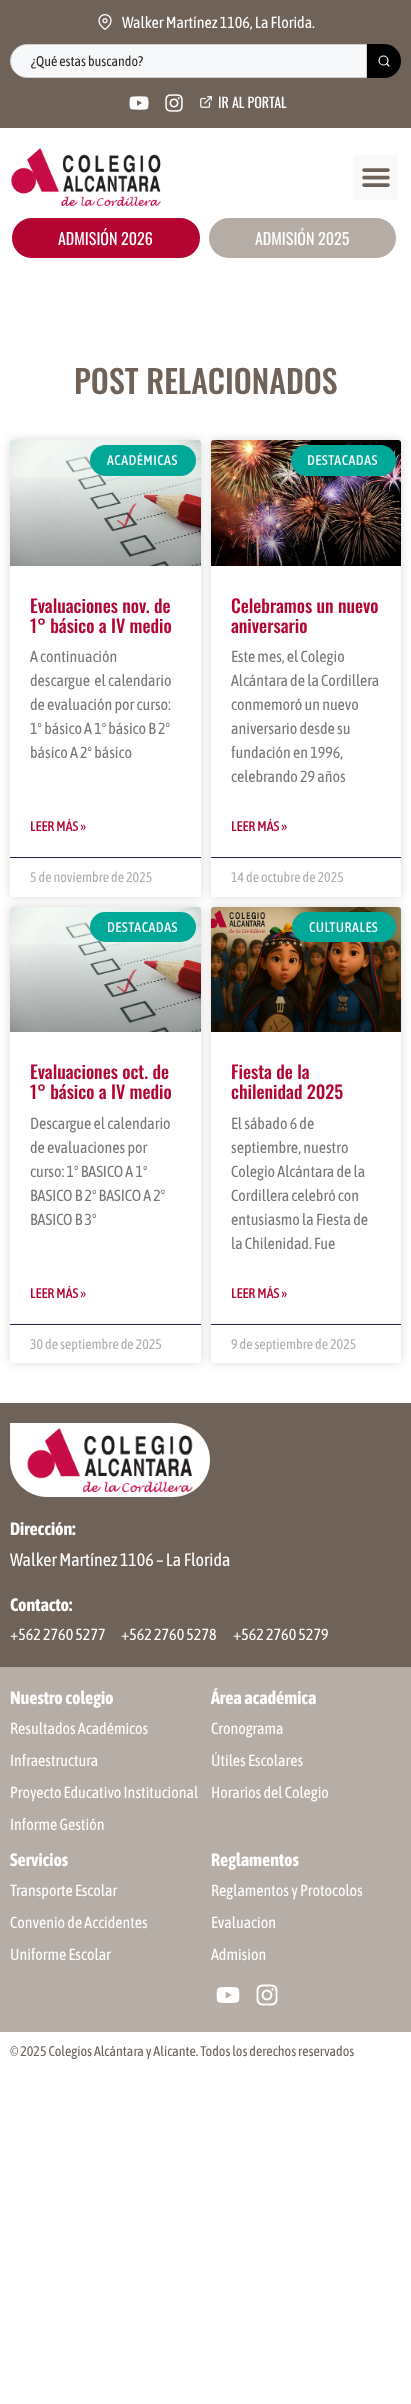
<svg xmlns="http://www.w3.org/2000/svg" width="411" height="2404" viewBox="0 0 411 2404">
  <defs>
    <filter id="blur1" x="-50%" y="-200%" width="200%" height="500%"><feGaussianBlur stdDeviation="5"/></filter>
    <linearGradient id="g1" gradientUnits="userSpaceOnUse" x1="106" y1="566" x2="106" y2="440"><stop offset="0" stop-color="#000000" stop-opacity="0.35"/><stop offset="0.75" stop-color="#000000" stop-opacity="0"/></linearGradient>
    <linearGradient id="g2" gradientUnits="userSpaceOnUse" x1="306" y1="566" x2="306" y2="440"><stop offset="0" stop-color="#000000" stop-opacity="0.35"/><stop offset="0.75" stop-color="#000000" stop-opacity="0"/></linearGradient>
    <linearGradient id="g3" gradientUnits="userSpaceOnUse" x1="106" y1="1032" x2="106" y2="907"><stop offset="0" stop-color="#000000" stop-opacity="0.35"/><stop offset="0.75" stop-color="#000000" stop-opacity="0"/></linearGradient>
    <linearGradient id="g4" gradientUnits="userSpaceOnUse" x1="306" y1="1032" x2="306" y2="907"><stop offset="0" stop-color="#000000" stop-opacity="0.35"/><stop offset="0.75" stop-color="#000000" stop-opacity="0"/></linearGradient>
  </defs>
  <rect width="100%" height="100%" fill="#ffffff"/>
  <rect x="0" y="0" width="411" height="128" fill="#6f6259"/>
  <image x="98" y="14" width="14" height="16" href="img1.png"/>
  <text x="122" y="28" font-family="Asap Condensed" font-size="16" fill="#ffffff">Walker Martínez 1106, La Florida.</text>
  <path d="M27 44.5H366.5V77.5H27C18 77.5 10.5 70 10.5 61C10.5 52 18 44.5 27 44.5Z" fill="#f7f8f9" stroke="#cdcdcd"/>
  <text x="31" y="66" font-family="Asap Condensed" font-size="14" fill="#2d2d2d">¿Qué estas buscando?</text>
  <path d="M367 44H384C393.5 44 401 51.5 401 61C401 70.5 393.5 78 384 78H367Z" fill="#000000"/>
  <circle cx="383.5" cy="60.5" r="4.5" fill="none" stroke="#ffffff" stroke-width="1.2"/>
  <path d="M389 66L386.5 63.5" fill="none" stroke="#ffffff" stroke-width="1.2" stroke-linecap="round" stroke-linejoin="round"/>
  <image x="129" y="96" width="20" height="14" href="img2.png"/>
  <image x="165" y="94" width="18" height="18" href="img3.png"/>
  <image x="200" y="96" width="12" height="12" href="img4.png"/>
  <text x="218" y="108" font-family="Oswald" font-size="14" fill="#ffffff">IR AL PORTAL</text>
  <image x="11" y="148" width="150" height="58" href="img5.png"/>
  <rect x="353" y="155" width="45" height="45" rx="3" fill="#f8f9f8"/>
  <image x="362" y="168" width="28" height="19" href="img6.png"/>
  <rect x="11" y="217" width="190" height="42" rx="21" fill="#b40431" stroke="#ffffff" stroke-width="2"/>
  <text x="58" y="245" font-family="Oswald" font-size="16" fill="#ffffff">ADMISIÓN 2026</text>
  <rect x="208" y="217" width="189" height="42" rx="21" fill="#b5ada5" stroke="#ffffff" stroke-width="2"/>
  <text x="255" y="245" font-family="Oswald" font-size="16" fill="#ffffff">ADMISIÓN 2025</text>
  <text x="74" y="394" font-family="Oswald" font-size="32" font-weight="500" fill="#6f6259">POST RELACIONADOS</text>
  <rect x="10" y="440" width="191" height="457" rx="3" fill="#000000" fill-opacity="0.15" filter="url(#blur1)"/>
  <rect x="10" y="440" width="191" height="457" rx="3" fill="#ffffff"/>
  <image x="10" y="440" width="191" height="126" href="img7.png"/>
  <rect x="10" y="477" width="191" height="89" fill="url(#g1)"/>
  <rect x="90" y="445" width="106" height="31" rx="15.5" fill="#00a898"/>
  <text x="107" y="465" font-family="Asap Condensed" font-size="14" font-weight="500" letter-spacing="0.5" fill="#f3f5f8">ACADÉMICAS</text>
  <text x="30" y="613" font-family="Oswald" font-size="18" font-weight="500" fill="#b40431">Evaluaciones nov. de</text>
  <text x="30" y="633" font-family="Oswald" font-size="18" font-weight="500" fill="#b40431">1° básico a IV medio</text>
  <text x="30" y="662" font-family="Asap Condensed" font-size="16" fill="#777777">A continuación</text>
  <text x="30" y="686" font-family="Asap Condensed" font-size="16" fill="#777777" xml:space="preserve">descargue  el calendario</text>
  <text x="30" y="710" font-family="Asap Condensed" font-size="16" fill="#777777">de evaluación por curso:</text>
  <text x="30" y="734" font-family="Asap Condensed" font-size="16" fill="#777777">1° básico A 1° básico B 2°</text>
  <text x="30" y="758" font-family="Asap Condensed" font-size="16" fill="#777777">básico A 2° básico</text>
  <text x="30" y="831" font-family="Asap Condensed" font-size="14" font-weight="500" fill="#b40431">LEER MÁS »</text>
  <rect x="10" y="857" width="191" height="1" fill="#1c244b"/>
  <text x="30" y="882" font-family="Asap Condensed" font-size="14" fill="#adadad">5 de noviembre de 2025</text>
  <rect x="211" y="440" width="190" height="457" rx="3" fill="#000000" fill-opacity="0.15" filter="url(#blur1)"/>
  <rect x="211" y="440" width="190" height="457" rx="3" fill="#ffffff"/>
  <image x="211" y="440" width="190" height="126" href="img8.png"/>
  <rect x="211" y="477" width="190" height="89" fill="url(#g2)"/>
  <rect x="291" y="445" width="105" height="31" rx="15.5" fill="#00a898"/>
  <text x="307" y="465" font-family="Asap Condensed" font-size="14" font-weight="500" letter-spacing="0.5" fill="#f3f5f8">DESTACADAS</text>
  <text x="231" y="613" font-family="Oswald" font-size="18" font-weight="500" fill="#b40431">Celebramos un nuevo</text>
  <text x="231" y="633" font-family="Oswald" font-size="18" font-weight="500" fill="#b40431">aniversario</text>
  <text x="231" y="662" font-family="Asap Condensed" font-size="16" fill="#777777">Este mes, el Colegio</text>
  <text x="231" y="686" font-family="Asap Condensed" font-size="16" fill="#777777">Alcántara de la Cordillera</text>
  <text x="231" y="710" font-family="Asap Condensed" font-size="16" fill="#777777">conmemoró un nuevo</text>
  <text x="231" y="734" font-family="Asap Condensed" font-size="16" fill="#777777">aniversario desde su</text>
  <text x="231" y="758" font-family="Asap Condensed" font-size="16" fill="#777777">fundación en 1996,</text>
  <text x="231" y="782" font-family="Asap Condensed" font-size="16" fill="#777777">celebrando 29 años</text>
  <text x="231" y="831" font-family="Asap Condensed" font-size="14" font-weight="500" fill="#b40431">LEER MÁS »</text>
  <rect x="211" y="857" width="190" height="1" fill="#1c244b"/>
  <text x="231" y="882" font-family="Asap Condensed" font-size="14" fill="#adadad">14 de octubre de 2025</text>
  <rect x="10" y="907" width="191" height="456" rx="3" fill="#000000" fill-opacity="0.15" filter="url(#blur1)"/>
  <rect x="10" y="907" width="191" height="456" rx="3" fill="#ffffff"/>
  <image x="10" y="907" width="191" height="125" href="img9.png"/>
  <rect x="10" y="944" width="191" height="88" fill="url(#g3)"/>
  <rect x="90" y="912" width="106" height="30" rx="15" fill="#00a898"/>
  <text x="107" y="932" font-family="Asap Condensed" font-size="14" font-weight="500" letter-spacing="0.5" fill="#f3f5f8">DESTACADAS</text>
  <text x="30" y="1079" font-family="Oswald" font-size="18" font-weight="500" fill="#b40431">Evaluaciones oct. de</text>
  <text x="30" y="1099" font-family="Oswald" font-size="18" font-weight="500" fill="#b40431">1° básico a IV medio</text>
  <text x="30" y="1129" font-family="Asap Condensed" font-size="16" fill="#777777">Descargue el calendario</text>
  <text x="30" y="1153" font-family="Asap Condensed" font-size="16" fill="#777777">de evaluaciones por</text>
  <text x="30" y="1177" font-family="Asap Condensed" font-size="16" fill="#777777">curso: 1° BASICO A 1°</text>
  <text x="30" y="1201" font-family="Asap Condensed" font-size="16" fill="#777777">BASICO B 2° BASICO A 2°</text>
  <text x="30" y="1225" font-family="Asap Condensed" font-size="16" fill="#777777">BASICO B 3°</text>
  <text x="30" y="1298" font-family="Asap Condensed" font-size="14" font-weight="500" fill="#b40431">LEER MÁS »</text>
  <rect x="10" y="1324" width="191" height="1" fill="#1c244b"/>
  <text x="30" y="1349" font-family="Asap Condensed" font-size="14" fill="#adadad">30 de septiembre de 2025</text>
  <rect x="211" y="907" width="190" height="456" rx="3" fill="#000000" fill-opacity="0.15" filter="url(#blur1)"/>
  <rect x="211" y="907" width="190" height="456" rx="3" fill="#ffffff"/>
  <image x="211" y="907" width="190" height="125" href="img10.png"/>
  <rect x="211" y="944" width="190" height="88" fill="url(#g4)"/>
  <rect x="292" y="912" width="104" height="30" rx="15" fill="#00a898"/>
  <text x="309" y="932" font-family="Asap Condensed" font-size="14" font-weight="500" letter-spacing="0.5" fill="#f3f5f8">CULTURALES</text>
  <text x="231" y="1079" font-family="Oswald" font-size="18" font-weight="500" fill="#b40431">Fiesta de la</text>
  <text x="231" y="1099" font-family="Oswald" font-size="18" font-weight="500" fill="#b40431">chilenidad 2025</text>
  <text x="231" y="1129" font-family="Asap Condensed" font-size="16" fill="#777777">El sábado 6 de</text>
  <text x="231" y="1153" font-family="Asap Condensed" font-size="16" fill="#777777">septiembre, nuestro</text>
  <text x="231" y="1177" font-family="Asap Condensed" font-size="16" fill="#777777">Colegio Alcántara de la</text>
  <text x="231" y="1201" font-family="Asap Condensed" font-size="16" fill="#777777">Cordillera celebró con</text>
  <text x="231" y="1225" font-family="Asap Condensed" font-size="16" fill="#777777">entusiasmo la Fiesta de</text>
  <text x="231" y="1249" font-family="Asap Condensed" font-size="16" fill="#777777">la Chilenidad. Fue</text>
  <text x="231" y="1298" font-family="Asap Condensed" font-size="14" font-weight="500" fill="#b40431">LEER MÁS »</text>
  <rect x="211" y="1324" width="190" height="1" fill="#1c244b"/>
  <text x="231" y="1349" font-family="Asap Condensed" font-size="14" fill="#adadad">9 de septiembre de 2025</text>
  <rect x="0" y="1667" width="411" height="365" fill="#b6ada6"/>
  <rect x="0" y="1403" width="411" height="264" fill="#6f6259"/>
  <path d="M10 1423H173C193.5 1423 210 1439.5 210 1460C210 1480.5 193.5 1497 173 1497H47C26.5 1497 10 1480.5 10 1460Z" fill="#ffffff"/>
  <image x="27" y="1428" width="166" height="64" href="img11.png"/>
  <text x="10" y="1535" font-family="Asap Condensed" font-size="18" font-weight="bold" fill="#ffffff">Dirección:</text>
  <text x="10" y="1566" font-family="Asap Condensed" font-size="18" fill="#ffffff">Walker Martínez 1106 – La Florida</text>
  <text x="10" y="1611" font-family="Asap Condensed" font-size="18" font-weight="bold" fill="#ffffff">Contacto:</text>
  <text x="10" y="1640" font-family="Asap Condensed" font-size="16" fill="#ffffff">+562 2760 5277</text>
  <text x="121" y="1640" font-family="Asap Condensed" font-size="16" fill="#ffffff">+562 2760 5278</text>
  <text x="233" y="1640" font-family="Asap Condensed" font-size="16" fill="#ffffff">+562 2760 5279</text>
  <text x="10" y="1704" font-family="Asap Condensed" font-size="18" font-weight="bold" fill="#ffffff">Nuestro colegio</text>
  <text x="10" y="1734" font-family="Asap Condensed" font-size="16" fill="#ffffff">Resultados Académicos</text>
  <text x="10" y="1766" font-family="Asap Condensed" font-size="16" fill="#ffffff">Infraestructura</text>
  <text x="10" y="1798" font-family="Asap Condensed" font-size="16" fill="#ffffff">Proyecto Educativo Institucional</text>
  <text x="10" y="1830" font-family="Asap Condensed" font-size="16" fill="#ffffff">Informe Gestión</text>
  <text x="211" y="1704" font-family="Asap Condensed" font-size="18" font-weight="bold" fill="#ffffff">Área académica</text>
  <text x="211" y="1734" font-family="Asap Condensed" font-size="16" fill="#ffffff">Cronograma</text>
  <text x="211" y="1766" font-family="Asap Condensed" font-size="16" fill="#ffffff">Útiles Escolares</text>
  <text x="211" y="1798" font-family="Asap Condensed" font-size="16" fill="#ffffff">Horarios del Colegio</text>
  <text x="10" y="1866" font-family="Asap Condensed" font-size="18" font-weight="bold" fill="#ffffff">Servicios</text>
  <text x="10" y="1896" font-family="Asap Condensed" font-size="16" fill="#ffffff">Transporte Escolar</text>
  <text x="10" y="1928" font-family="Asap Condensed" font-size="16" fill="#ffffff">Convenio de Accidentes</text>
  <text x="10" y="1960" font-family="Asap Condensed" font-size="16" fill="#ffffff">Uniforme Escolar</text>
  <text x="211" y="1866" font-family="Asap Condensed" font-size="18" font-weight="bold" fill="#ffffff">Reglamentos</text>
  <text x="211" y="1896" font-family="Asap Condensed" font-size="16" fill="#ffffff">Reglamentos y Protocolos</text>
  <text x="211" y="1928" font-family="Asap Condensed" font-size="16" fill="#ffffff">Evaluacion</text>
  <text x="211" y="1960" font-family="Asap Condensed" font-size="16" fill="#ffffff">Admision</text>
  <image x="216" y="1987" width="24" height="16" href="img12.png"/>
  <image x="256" y="1984" width="22" height="22" href="img13.png"/>
  <text x="10" y="2056" font-family="Asap Condensed" font-size="14" fill="#6f6259">© 2025 Colegios Alcántara y Alicante. Todos los derechos reservados</text>
</svg>
